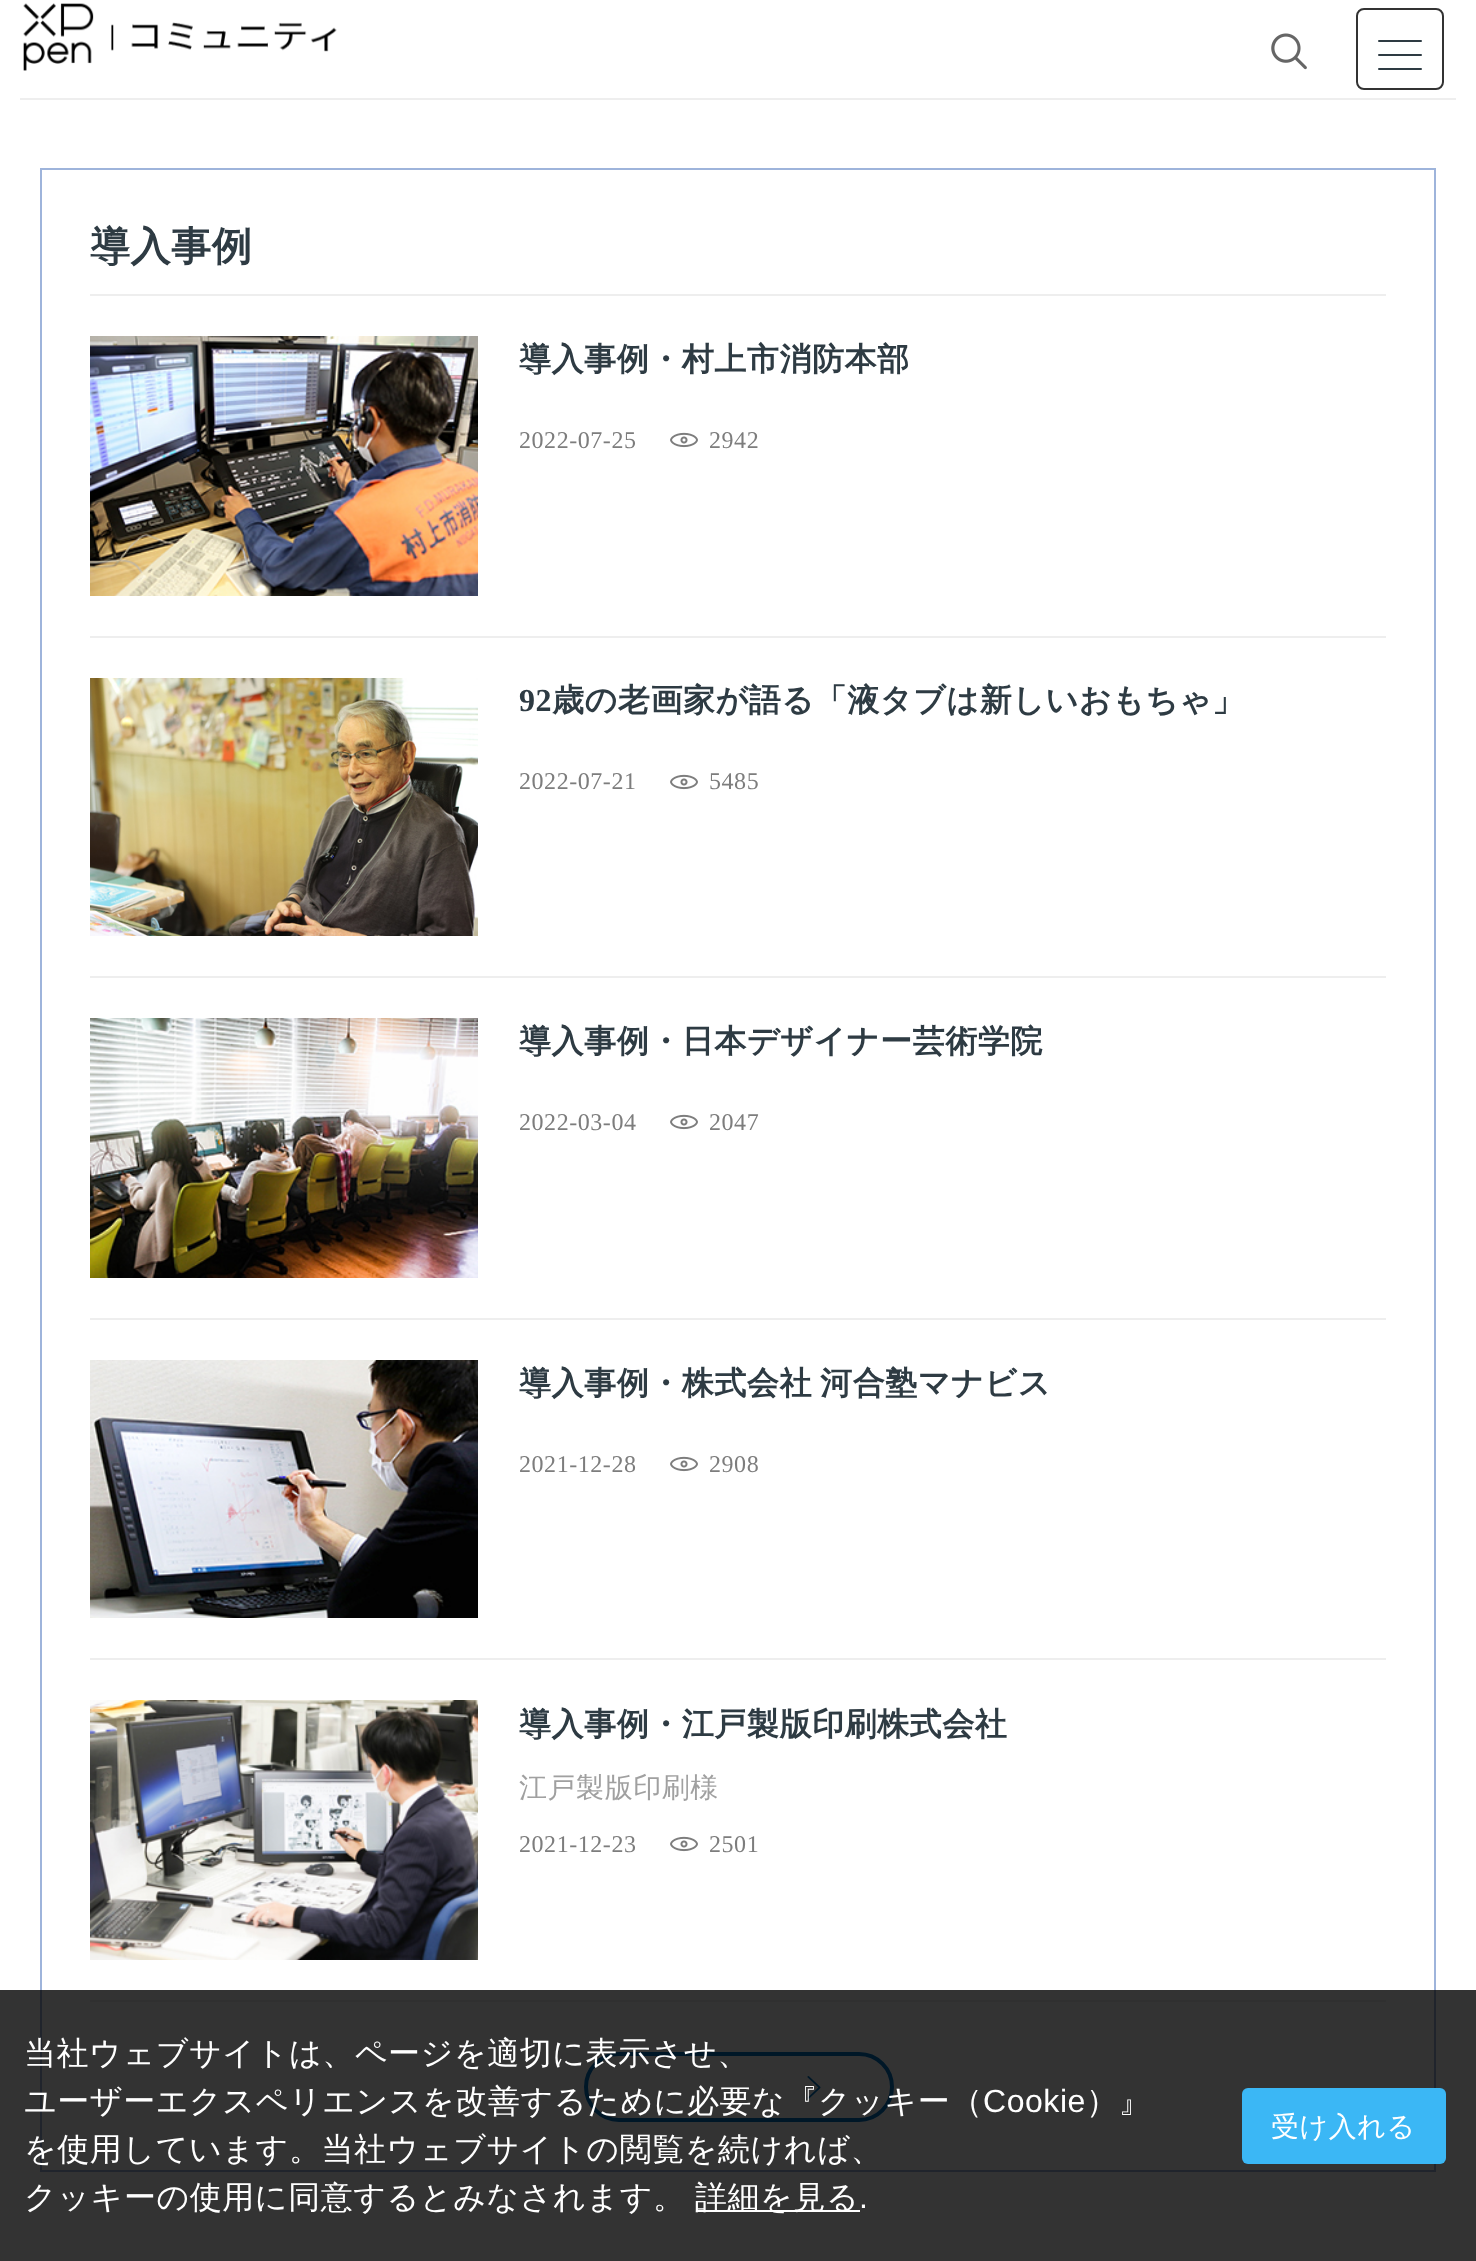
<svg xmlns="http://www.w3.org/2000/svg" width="1476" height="2261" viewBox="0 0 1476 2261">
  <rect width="100%" height="100%" fill="#ffffff"/>
  <rect x="20" y="98" width="1436" height="2" fill="#eeeeee"/>
  <image x="23" y="3" width="314" height="68" href="img1.png"/>
  <image x="1271" y="33" width="36" height="37" href="img2.png"/>
  <rect x="1357" y="9" width="86" height="80" rx="7" fill="none" stroke="#333333" stroke-width="2"/>
  <rect x="1378" y="40" width="44" height="2" rx="1" fill="#2e3b43"/>
  <rect x="1378" y="54" width="44" height="2" rx="1" fill="#2e3b43"/>
  <rect x="1378" y="68" width="44" height="2" rx="1" fill="#2e3b43"/>
  <rect x="41" y="169" width="1394" height="2002" fill="none" stroke="#9eb4db" stroke-width="2"/>
  <rect x="90" y="294" width="1296" height="2" fill="#eeeeee"/>
  <text x="90" y="260" font-family="WenQuanYi Zen Hei" font-size="40" font-weight="bold" letter-spacing="0.55" fill="#2e3b43">導入事例</text>
  <rect x="90" y="636" width="1296" height="2" fill="#eeeeee"/>
  <image x="90" y="336" width="388" height="260" href="img3.png"/>
  <text x="519" y="370" font-family="WenQuanYi Zen Hei" font-size="32" font-weight="bold" letter-spacing="0.55" fill="#2e3b43">導入事例・村上市消防本部</text>
  <text x="519" y="448" font-family="Liberation Serif" font-size="24" letter-spacing="0.55" fill="#7d7d7d">2022-07-25</text>
  <image x="670" y="432" width="28" height="16" href="img4.png"/>
  <text x="709" y="448" font-family="Liberation Serif" font-size="24" letter-spacing="0.55" fill="#7d7d7d">2942</text>
  <rect x="90" y="976" width="1296" height="2" fill="#eeeeee"/>
  <image x="90" y="678" width="388" height="258" href="img5.png"/>
  <text x="519" y="711" font-family="Liberation Serif" font-size="32" font-weight="bold" letter-spacing="0.55" fill="#2e3b43">92</text>
  <text x="552" y="711" font-family="WenQuanYi Zen Hei" font-size="32" font-weight="bold" letter-spacing="0.55" fill="#2e3b43">歳の老画家が語る「液タブは新しいおもちゃ」</text>
  <text x="519" y="789" font-family="Liberation Serif" font-size="24" letter-spacing="0.55" fill="#7d7d7d">2022-07-21</text>
  <image x="670" y="774" width="28" height="16" href="img4.png"/>
  <text x="709" y="789" font-family="Liberation Serif" font-size="24" letter-spacing="0.55" fill="#7d7d7d">5485</text>
  <rect x="90" y="1318" width="1296" height="2" fill="#eeeeee"/>
  <image x="90" y="1018" width="388" height="260" href="img6.png"/>
  <text x="519" y="1052" font-family="WenQuanYi Zen Hei" font-size="32" font-weight="bold" letter-spacing="0.55" fill="#2e3b43">導入事例・日本デザイナー芸術学院</text>
  <text x="519" y="1130" font-family="Liberation Serif" font-size="24" letter-spacing="0.55" fill="#7d7d7d">2022-03-04</text>
  <image x="670" y="1114" width="28" height="16" href="img4.png"/>
  <text x="709" y="1130" font-family="Liberation Serif" font-size="24" letter-spacing="0.55" fill="#7d7d7d">2047</text>
  <rect x="90" y="1658" width="1296" height="2" fill="#eeeeee"/>
  <image x="90" y="1360" width="388" height="258" href="img7.png"/>
  <text x="519" y="1394" word-spacing="-2" font-family="WenQuanYi Zen Hei" font-size="32" font-weight="bold" letter-spacing="0.55" fill="#2e3b43">導入事例・株式会社 河合塾マナビス</text>
  <text x="519" y="1472" font-family="Liberation Serif" font-size="24" letter-spacing="0.55" fill="#7d7d7d">2021-12-28</text>
  <image x="670" y="1456" width="28" height="16" href="img4.png"/>
  <text x="709" y="1472" font-family="Liberation Serif" font-size="24" letter-spacing="0.55" fill="#7d7d7d">2908</text>
  <rect x="90" y="2000" width="1296" height="2" fill="#eeeeee"/>
  <image x="90" y="1700" width="388" height="260" href="img8.png"/>
  <text x="519" y="1735" font-family="WenQuanYi Zen Hei" font-size="32" font-weight="bold" letter-spacing="0.55" fill="#2e3b43">導入事例・江戸製版印刷株式会社</text>
  <text x="519" y="1797" font-family="WenQuanYi Zen Hei" font-size="28" font-weight="500" letter-spacing="0.55" fill="#a0a0a0">江戸製版印刷様</text>
  <text x="519" y="1852" font-family="Liberation Serif" font-size="24" letter-spacing="0.55" fill="#7d7d7d">2021-12-23</text>
  <image x="670" y="1836" width="28" height="16" href="img4.png"/>
  <text x="709" y="1852" font-family="Liberation Serif" font-size="24" letter-spacing="0.55" fill="#7d7d7d">2501</text>
  <rect x="586" y="2054" width="306" height="66" rx="33" fill="none" stroke="#0072c3" stroke-width="4"/>
  <image x="807" y="2076" width="14" height="23" href="img9.png"/>
  <rect x="0" y="1990" width="1476" height="271" fill="#000000" fill-opacity="0.8"/>
  <text x="24" y="2064" font-family="WenQuanYi Zen Hei" font-size="32" font-weight="500" letter-spacing="0.55" fill="#ffffff">当社ウェブサイトは、ページを適切に表示させ、</text>
  <text x="24" y="2112" font-family="WenQuanYi Zen Hei" font-size="32" font-weight="500" letter-spacing="0.55" fill="#ffffff">ユーザーエクスペリエンスを改善するために必要な『クッキー（</text>
  <text x="983" y="2112" font-family="Liberation Sans" font-size="32" letter-spacing="0.55" fill="#ffffff">Cookie</text>
  <text x="1086" y="2112" font-family="WenQuanYi Zen Hei" font-size="32" font-weight="500" letter-spacing="0.55" fill="#ffffff">）』</text>
  <text x="24" y="2160" font-family="WenQuanYi Zen Hei" font-size="32" font-weight="500" letter-spacing="0.55" fill="#ffffff">を使用しています。当社ウェブサイトの閲覧を続ければ、</text>
  <text x="24" y="2208" font-family="WenQuanYi Zen Hei" font-size="32" font-weight="500" letter-spacing="0.55" fill="#ffffff">クッキーの使用に同意するとみなされます。</text>
  <rect x="696" y="2210" width="164" height="2" fill="#ffffff"/>
  <text x="695" y="2208" font-family="WenQuanYi Zen Hei" font-size="32" font-weight="500" letter-spacing="0.55" fill="#ffffff">詳細を見る</text>
  <text x="859" y="2208" font-family="Liberation Sans" font-size="32" letter-spacing="0.55" fill="#ffffff">.</text>
  <rect x="1242" y="2088" width="204" height="76" rx="6" fill="#3bb7f5"/>
  <text x="1271" y="2136" font-family="WenQuanYi Zen Hei" font-size="28" font-weight="500" letter-spacing="0.55" fill="#ffffff">受け入れる</text>
</svg>
